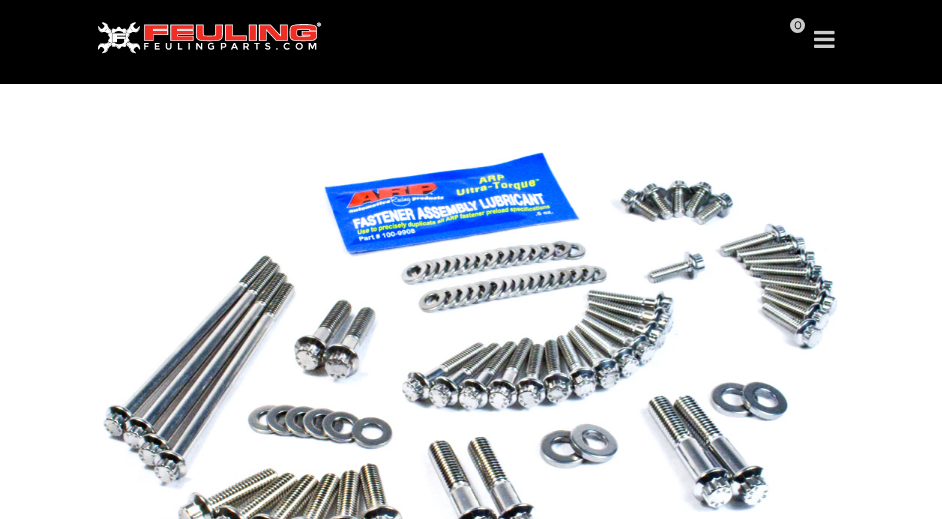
<svg xmlns="http://www.w3.org/2000/svg" width="942" height="519" viewBox="0 0 942 519">
  <rect width="100%" height="100%" fill="#ffffff"/>
  <rect x="0" y="0" width="942" height="84" fill="#000000"/>
  <image x="98" y="22" width="224" height="32" href="img1.png"/>
  <circle cx="797.5" cy="25.5" r="7.5" fill="#cccccc"/>
  <text x="794" y="29" font-family="Raleway" font-size="13" letter-spacing="1" fill="#000000">0</text>
  <image x="814" y="30" width="21" height="18" href="img2.png"/>
  <image x="103" y="152" width="735" height="367" href="img3.png"/>
</svg>
